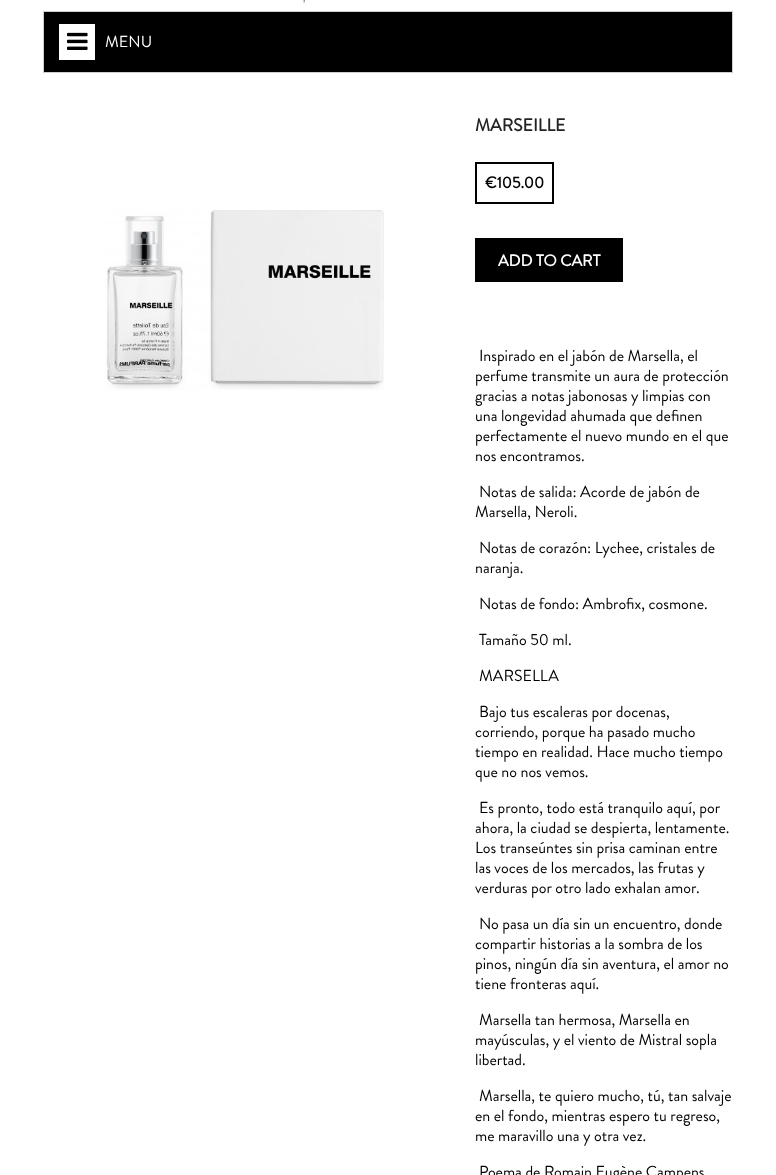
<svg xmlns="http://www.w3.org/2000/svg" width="776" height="1175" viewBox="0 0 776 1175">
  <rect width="100%" height="100%" fill="#ffffff"/>
  <image x="303" y="0" width="2" height="3" href="img1.png"/>
  <rect x="43.5" y="11.5" width="689" height="61" fill="#000000" stroke="#cecece"/>
  <rect x="59" y="24" width="36" height="36" fill="#ffffff"/>
  <image x="67" y="32" width="21" height="18" href="img2.png"/>
  <text x="105" y="47" font-family="Brandon Grotesque" font-size="16" fill="#ffffff">MENU</text>
  <image x="105" y="210" width="279" height="180" href="img3.png"/>
  <text x="475" y="131" font-family="Brandon Grotesque" font-size="17.5" font-weight="bold" fill="#232323">MARSEILLE</text>
  <rect x="476" y="163" width="77" height="40" fill="none" stroke="#000000" stroke-width="2"/>
  <text x="485" y="188" font-family="Brandon Grotesque" font-size="16" font-weight="bold" fill="#000000">€105.00</text>
  <rect x="475" y="238" width="148" height="44" fill="#000000"/>
  <text x="498" y="266" font-family="Brandon Grotesque" font-size="16" font-weight="bold" fill="#ffffff">ADD TO CART</text>
  <text x="479" y="361" font-family="Brandon Grotesque" font-size="16" fill="#000000">Inspirado en el jabón de Marsella, el</text>
  <text x="475" y="381" font-family="Brandon Grotesque" font-size="16" fill="#000000">perfume transmite un aura de protección</text>
  <text x="475" y="401" font-family="Brandon Grotesque" font-size="16" fill="#000000">gracias a notas jabonosas y limpias con</text>
  <text x="475" y="421" font-family="Brandon Grotesque" font-size="16" fill="#000000">una longevidad ahumada que definen</text>
  <text x="475" y="441" font-family="Brandon Grotesque" font-size="16" fill="#000000">perfectamente el nuevo mundo en el que</text>
  <text x="475" y="461" font-family="Brandon Grotesque" font-size="16" fill="#000000">nos encontramos.</text>
  <text x="479" y="497" font-family="Brandon Grotesque" font-size="16" fill="#000000">Notas de salida: Acorde de jabón de</text>
  <text x="475" y="517" font-family="Brandon Grotesque" font-size="16" fill="#000000">Marsella, Neroli.</text>
  <text x="479" y="553" font-family="Brandon Grotesque" font-size="16" fill="#000000">Notas de corazón: Lychee, cristales de</text>
  <text x="475" y="573" font-family="Brandon Grotesque" font-size="16" fill="#000000">naranja.</text>
  <text x="479" y="609" font-family="Brandon Grotesque" font-size="16" fill="#000000">Notas de fondo: Ambrofix, cosmone.</text>
  <text x="479" y="645" font-family="Brandon Grotesque" font-size="16" fill="#000000">Tamaño 50 ml.</text>
  <text x="479" y="681" font-family="Brandon Grotesque" font-size="16" fill="#000000">MARSELLA</text>
  <text x="479" y="717" font-family="Brandon Grotesque" font-size="16" fill="#000000">Bajo tus escaleras por docenas,</text>
  <text x="475" y="737" font-family="Brandon Grotesque" font-size="16" fill="#000000">corriendo, porque ha pasado mucho</text>
  <text x="475" y="757" font-family="Brandon Grotesque" font-size="16" fill="#000000">tiempo en realidad. Hace mucho tiempo</text>
  <text x="475" y="777" font-family="Brandon Grotesque" font-size="16" fill="#000000">que no nos vemos.</text>
  <text x="479" y="813" font-family="Brandon Grotesque" font-size="16" fill="#000000">Es pronto, todo está tranquilo aquí, por</text>
  <text x="475" y="833" font-family="Brandon Grotesque" font-size="16" fill="#000000">ahora, la ciudad se despierta, lentamente.</text>
  <text x="475" y="853" font-family="Brandon Grotesque" font-size="16" fill="#000000">Los transeúntes sin prisa caminan entre</text>
  <text x="475" y="873" font-family="Brandon Grotesque" font-size="16" fill="#000000">las voces de los mercados, las frutas y</text>
  <text x="475" y="893" font-family="Brandon Grotesque" font-size="16" fill="#000000">verduras por otro lado exhalan amor.</text>
  <text x="479" y="929" font-family="Brandon Grotesque" font-size="16" fill="#000000">No pasa un día sin un encuentro, donde</text>
  <text x="475" y="949" font-family="Brandon Grotesque" font-size="16" fill="#000000">compartir historias a la sombra de los</text>
  <text x="475" y="969" font-family="Brandon Grotesque" font-size="16" fill="#000000">pinos, ningún día sin aventura, el amor no</text>
  <text x="475" y="989" font-family="Brandon Grotesque" font-size="16" fill="#000000">tiene fronteras aquí.</text>
  <text x="479" y="1025" font-family="Brandon Grotesque" font-size="16" fill="#000000">Marsella tan hermosa, Marsella en</text>
  <text x="475" y="1045" font-family="Brandon Grotesque" font-size="16" fill="#000000">mayúsculas, y el viento de Mistral sopla</text>
  <text x="475" y="1065" font-family="Brandon Grotesque" font-size="16" fill="#000000">libertad.</text>
  <text x="479" y="1101" font-family="Brandon Grotesque" font-size="16" fill="#000000">Marsella, te quiero mucho, tú, tan salvaje</text>
  <text x="475" y="1121" font-family="Brandon Grotesque" font-size="16" fill="#000000">en el fondo, mientras espero tu regreso,</text>
  <text x="475" y="1141" font-family="Brandon Grotesque" font-size="16" fill="#000000">me maravillo una y otra vez.</text>
  <text x="479" y="1177" font-family="Brandon Grotesque" font-size="16" fill="#000000">Poema de Romain Eugène Campens</text>
</svg>
